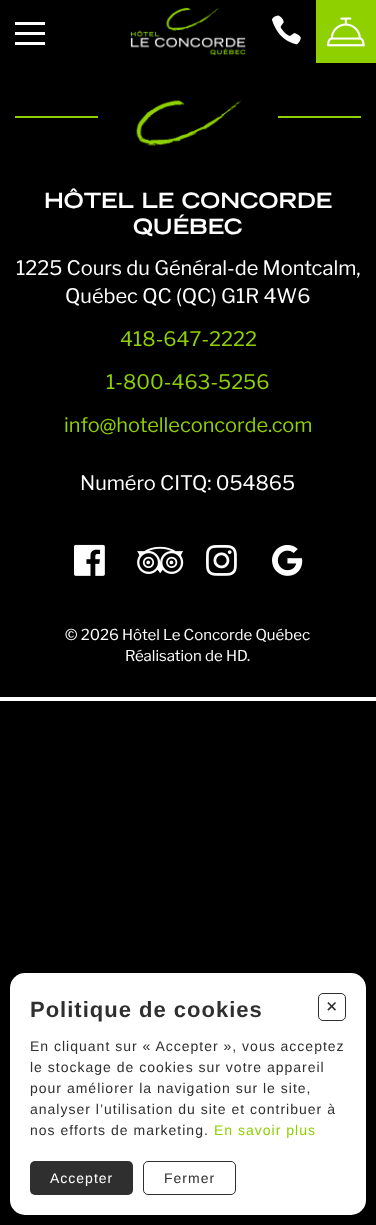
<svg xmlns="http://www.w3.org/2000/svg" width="376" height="1225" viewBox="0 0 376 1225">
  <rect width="100%" height="100%" fill="#000000"/>
  <rect x="15" y="22" width="30" height="3" fill="#ffffff"/>
  <rect x="15" y="32" width="30" height="3" fill="#ffffff"/>
  <rect x="15" y="42" width="30" height="3" fill="#ffffff"/>
  <image x="130" y="7" width="116" height="49" href="img1.png"/>
  <image x="272" y="15" width="29" height="30" href="img2.png"/>
  <rect x="316" y="0" width="60" height="63" fill="#8ed000"/>
  <image x="327" y="17" width="38" height="30" href="img3.png"/>
  <rect x="15" y="116" width="83" height="2" fill="#8ed000"/>
  <image x="136" y="100" width="106" height="46" href="img4.png"/>
  <rect x="278" y="116" width="83" height="2" fill="#8ed000"/>
  <text x="44" y="208" font-family="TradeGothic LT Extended" font-size="21" font-weight="bold" fill="#ffffff">HÔTEL LE CONCORDE</text>
  <text x="133" y="234" font-family="TradeGothic LT Extended" font-size="21" font-weight="bold" fill="#ffffff">QUÉBEC</text>
  <text x="16" y="275" font-family="Libre Franklin" font-size="20" fill="#ffffff">1225 Cours du Général-de Montcalm,</text>
  <text x="65" y="303" font-family="Libre Franklin" font-size="20" fill="#ffffff">Québec QC (QC) G1R 4W6</text>
  <text x="120" y="346" font-family="Libre Franklin" font-size="20" fill="#8ed000">418-647-2222</text>
  <text x="106" y="389" font-family="Libre Franklin" font-size="20" fill="#8ed000">1-800-463-5256</text>
  <text x="64" y="432" font-family="Libre Franklin" font-size="20" fill="#8ed000">info@hotelleconcorde.com</text>
  <text x="80" y="490" font-family="Libre Franklin" font-size="20" fill="#ffffff">Numéro CITQ: 054865</text>
  <image x="74" y="544" width="31" height="32" href="img5.png"/>
  <image x="137" y="546" width="47" height="28" href="img6.png"/>
  <image x="206" y="544" width="31" height="32" href="img7.png"/>
  <image x="272" y="545" width="31" height="31" href="img8.png"/>
  <text x="65" y="640" font-family="Libre Franklin" font-size="15" fill="#ffffff">© 2026 Hôtel Le Concorde Québec</text>
  <text x="125" y="661" font-family="Libre Franklin" font-size="15" fill="#ffffff">Réalisation de HD.</text>
  <rect x="0" y="697" width="376" height="4" fill="#ffffff"/>
  <rect x="10" y="973" width="356" height="242" rx="15" fill="#ffffff"/>
  <text x="30" y="1017" font-family="Liberation Sans" font-size="22" font-weight="bold" letter-spacing="1" fill="#2f2f2f">Politique de cookies</text>
  <rect x="318.5" y="993.5" width="27" height="27" rx="4.5" fill="none" stroke="#2f2f2f"/>
  <text x="322" y="1007" transform="rotate(45 322 1007)" font-family="Liberation Sans" font-size="22" fill="#2f2f2f">+</text>
  <text x="30" y="1051" font-family="Liberation Sans" font-size="14" letter-spacing="1" fill="#2f2f2f">En cliquant sur « Accepter », vous acceptez</text>
  <text x="30" y="1072" font-family="Liberation Sans" font-size="14" letter-spacing="1" fill="#2f2f2f">le stockage de cookies sur votre appareil</text>
  <text x="30" y="1093" font-family="Liberation Sans" font-size="14" letter-spacing="1" fill="#2f2f2f">pour améliorer la navigation sur le site,</text>
  <text x="30" y="1114" font-family="Liberation Sans" font-size="14" letter-spacing="1" fill="#2f2f2f">analyser l’utilisation du site et contribuer à</text>
  <text x="30" y="1135" font-family="Liberation Sans" font-size="14" letter-spacing="1" fill="#2f2f2f">nos efforts de marketing.</text>
  <text x="214" y="1135" font-family="Liberation Sans" font-size="14" letter-spacing="1" fill="#8ed000">En savoir plus</text>
  <rect x="30" y="1161" width="103" height="34" rx="5" fill="#2f2f2f"/>
  <text x="50" y="1183" font-family="Liberation Sans" font-size="14" letter-spacing="1" fill="#ffffff">Accepter</text>
  <rect x="143.5" y="1161.5" width="92" height="33" rx="4.5" fill="none" stroke="#2f2f2f"/>
  <text x="164" y="1183" font-family="Liberation Sans" font-size="14" letter-spacing="1" fill="#2f2f2f">Fermer</text>
</svg>
